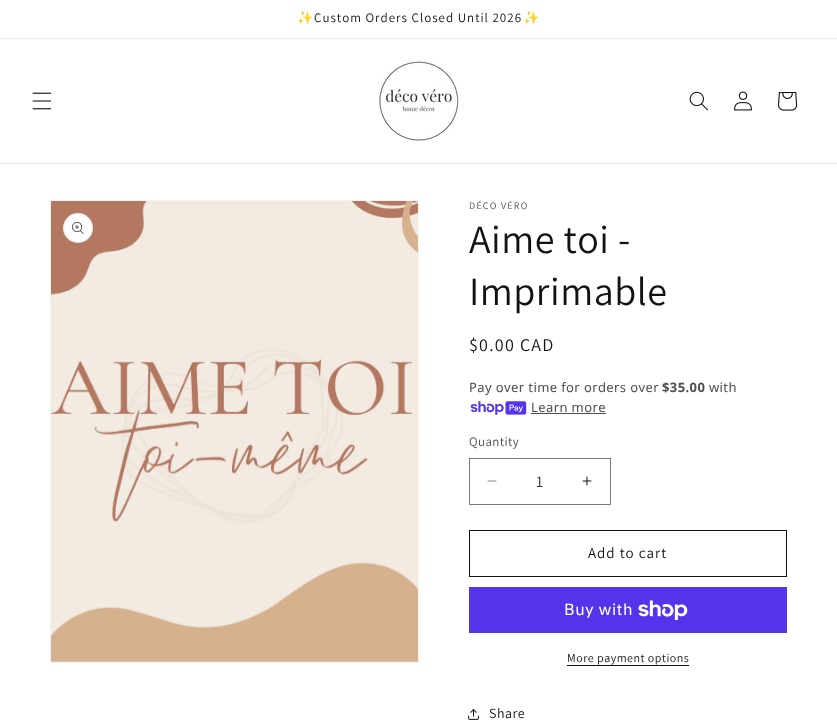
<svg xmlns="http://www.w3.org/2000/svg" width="837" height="720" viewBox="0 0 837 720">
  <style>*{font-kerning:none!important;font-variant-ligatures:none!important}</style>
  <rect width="100%" height="100%" fill="#ffffff"/>
  <rect x="0" y="38" width="837" height="1" fill="#ececec"/>
  <text x="297" y="22" font-family="Noto Color Emoji" font-size="13" letter-spacing="1" fill="#121212">✨</text>
  <text x="314" y="22" font-family="Assistant" font-size="13" letter-spacing="1" fill="#121212">Custom Orders Closed Until 2026</text>
  <text x="523" y="22" font-family="Noto Color Emoji" font-size="13" letter-spacing="1" fill="#121212">✨</text>
  <rect x="0" y="163" width="837" height="1" fill="#ececec"/>
  <image x="32" y="92" width="20" height="18" href="img1.png"/>
  <image x="378" y="61" width="81" height="80" href="img2.png"/>
  <image x="689" y="91" width="19" height="20" href="img3.png"/>
  <image x="734" y="91" width="18" height="20" href="img4.png"/>
  <image x="778" y="92" width="20" height="19" href="img5.png"/>
  <rect x="50.5" y="200.5" width="368" height="462" fill="none" stroke="#f3f3f3"/>
  <image x="51" y="201" width="367" height="461" href="img6.png"/>
  <circle cx="78" cy="228" r="15" fill="#ffffff"/>
  <circle cx="78" cy="228" r="14.5" fill="none" stroke="#121212" stroke-opacity="0.1"/>
  <image x="72" y="222" width="12" height="12" href="img7.png"/>
  <text x="469" y="209" font-family="Assistant" font-size="10" letter-spacing="1.25" fill="#4d4d4d">DÉCO VÉRO</text>
  <text x="469" y="253" font-family="Assistant" font-size="40" letter-spacing="0.5" fill="#121212">Aime toi -</text>
  <text x="469" y="305" font-family="Assistant" font-size="40" letter-spacing="0.5" fill="#121212">Imprimable</text>
  <text x="469" y="351" font-family="Assistant" font-size="18" letter-spacing="1.25" fill="#121212">$0.00 CAD</text>
  <text x="469" y="392" font-family="Noto Sans" font-size="13" letter-spacing="0.4" fill="#4d4d4d">Pay over time for orders over</text>
  <text x="662" y="392" font-family="Noto Sans" font-size="13" font-weight="bold" letter-spacing="0.4" fill="#4d4d4d">$35.00</text>
  <text x="709" y="392" font-family="Noto Sans" font-size="13" letter-spacing="0.4" fill="#4d4d4d">with</text>
  <image x="470" y="401" width="57" height="14" href="img8.png"/>
  <text x="531" y="412" font-family="Noto Sans" font-size="13" letter-spacing="0.4" fill="#4d4d4d">Learn more</text>
  <rect x="531" y="413" width="75" height="1" fill="#4d4d4d"/>
  <text x="469" y="446" font-family="Assistant" font-size="13" letter-spacing="0.4" fill="#4d4d4d">Quantity</text>
  <image x="487" y="480" width="10" height="2" href="img9.png"/>
  <image x="582" y="476" width="10" height="10" href="img10.png"/>
  <rect x="469.5" y="458.5" width="141" height="46" fill="none" stroke="#7d7d7d"/>
  <text x="536" y="487" font-family="Assistant" font-size="16" fill="#363636">1</text>
  <rect x="469.5" y="530.5" width="317" height="46" fill="none" stroke="#121212"/>
  <text x="588" y="558" font-family="Assistant" font-size="15" letter-spacing="1" fill="#121212">Add to cart</text>
  <rect x="469" y="587" width="318" height="46" fill="#5433eb"/>
  <text x="564" y="615" font-family="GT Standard" font-size="16" letter-spacing="0.5" fill="#ffffff">Buy with</text>
  <image x="638" y="600" width="50" height="20" href="img11.png"/>
  <text x="567" y="662" font-family="Assistant" font-size="12" letter-spacing="0.5" fill="#121212">More payment options</text>
  <rect x="567" y="665" width="122" height="1" fill="#121212"/>
  <image x="468" y="709" width="11" height="11" href="img12.png"/>
  <text x="489" y="718" font-family="Assistant" font-size="14" letter-spacing="0.5" fill="#121212">Share</text>
</svg>
